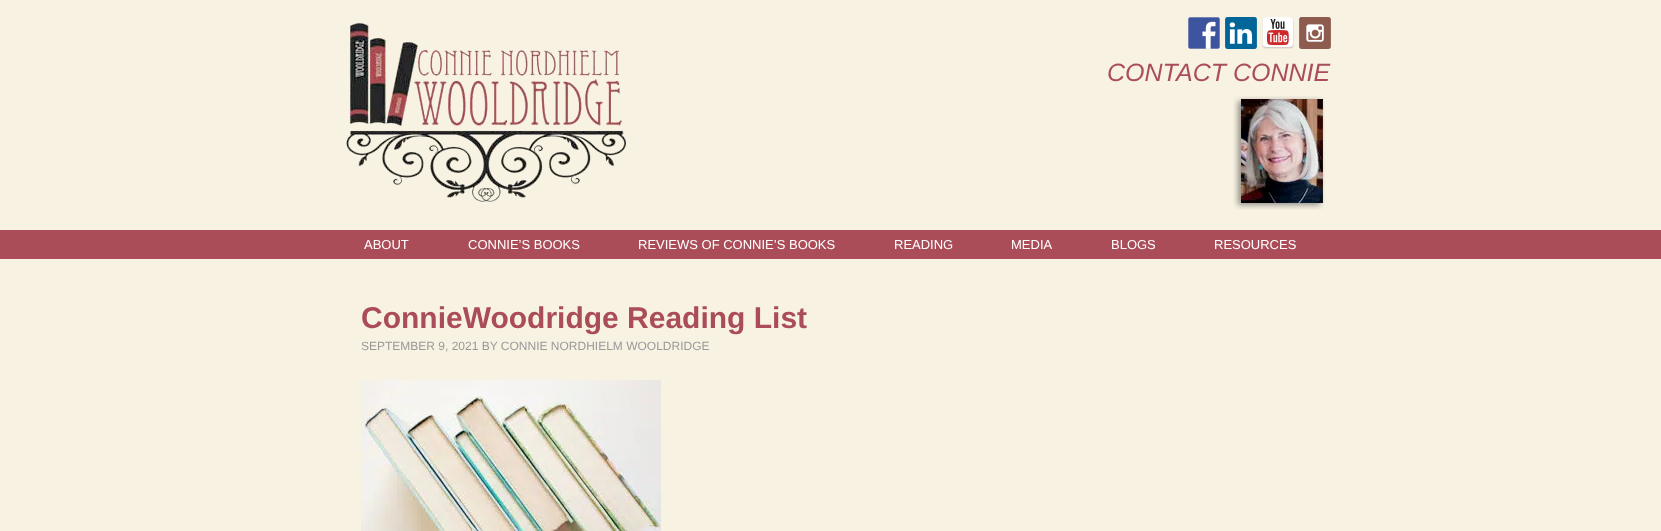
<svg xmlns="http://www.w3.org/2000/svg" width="1661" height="531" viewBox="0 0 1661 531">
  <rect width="100%" height="100%" fill="#f8f2e3"/>
  <image x="346" y="23" width="280" height="179" href="img1.png"/>
  <image x="1188" y="17" width="32" height="32" href="img2.png"/>
  <image x="1225" y="17" width="32" height="32" href="img3.png"/>
  <image x="1262" y="17" width="32" height="32" href="img4.png"/>
  <image x="1299" y="17" width="32" height="32" href="img5.png"/>
  <text x="1107" y="81" font-family="Liberation Sans" font-size="25" font-style="italic" fill="#aa4d58">CONTACT CONNIE</text>
  <image x="1233" y="96" width="92" height="114" href="img6.png"/>
  <rect x="0" y="230" width="1661" height="29" fill="#aa4d58"/>
  <text x="364" y="249" font-family="Liberation Sans" font-size="13" fill="#ffffff">ABOUT</text>
  <text x="468" y="249" font-family="Liberation Sans" font-size="13" fill="#ffffff">CONNIE’S BOOKS</text>
  <text x="638" y="249" font-family="Liberation Sans" font-size="13" fill="#ffffff">REVIEWS OF CONNIE’S BOOKS</text>
  <text x="894" y="249" font-family="Liberation Sans" font-size="13" fill="#ffffff">READING</text>
  <text x="1011" y="249" font-family="Liberation Sans" font-size="13" fill="#ffffff">MEDIA</text>
  <text x="1111" y="249" font-family="Liberation Sans" font-size="13" fill="#ffffff">BLOGS</text>
  <text x="1214" y="249" font-family="Liberation Sans" font-size="13" fill="#ffffff">RESOURCES</text>
  <text x="361" y="328" font-family="Liberation Sans" font-size="30" font-weight="bold" fill="#aa4d58">ConnieWoodridge Reading List</text>
  <text x="361" y="350" font-family="Liberation Sans" font-size="12" fill="#999999">SEPTEMBER 9, 2021 BY CONNIE NORDHIELM WOOLDRIDGE</text>
  <image x="361" y="380" width="300" height="151" href="img7.png"/>
</svg>
